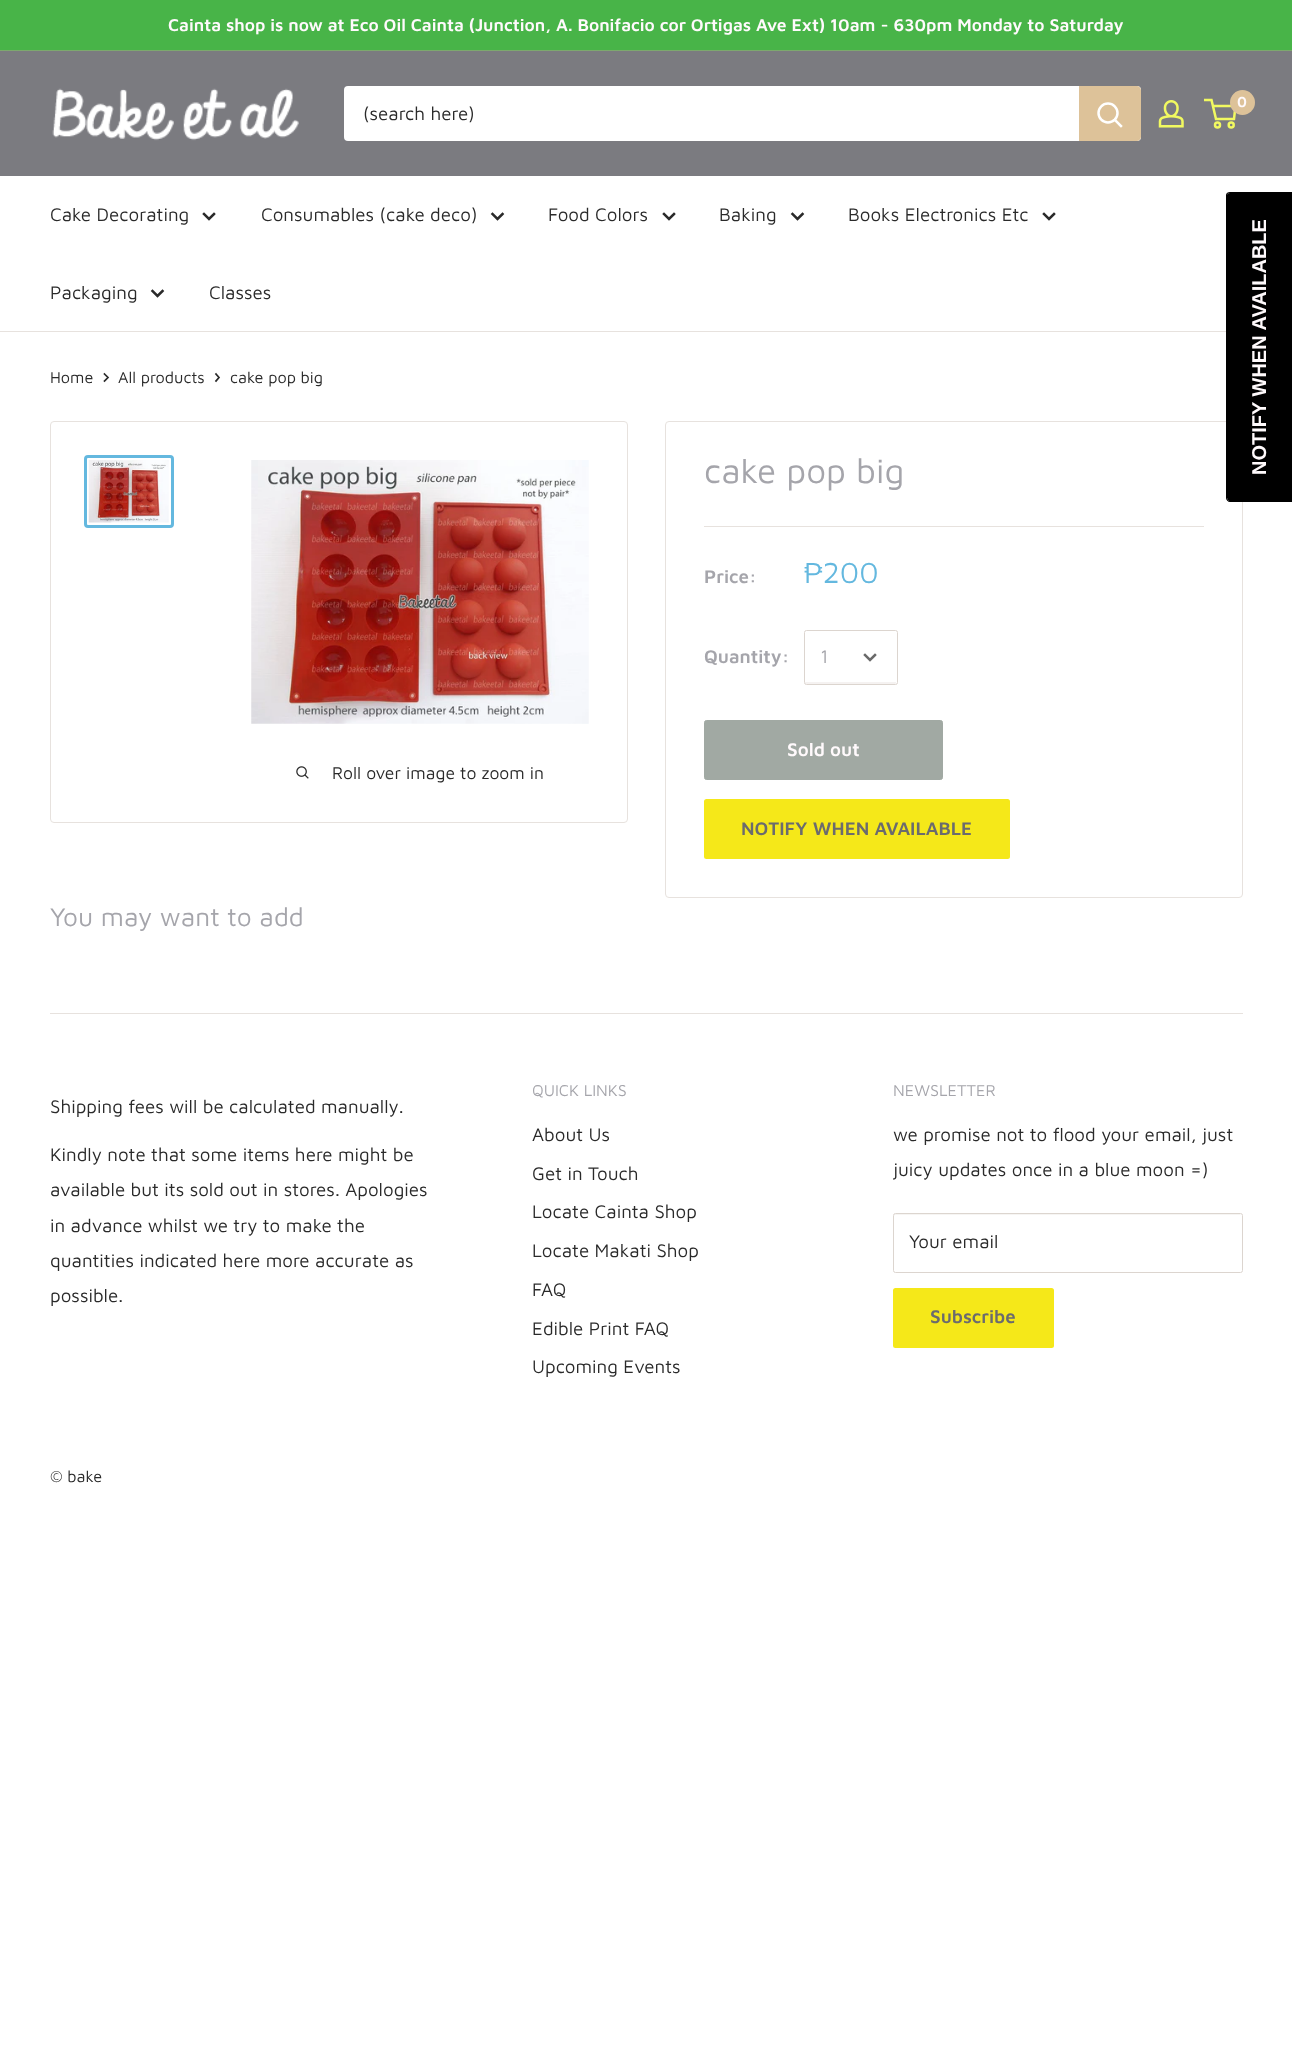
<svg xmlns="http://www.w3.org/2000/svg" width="1292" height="2065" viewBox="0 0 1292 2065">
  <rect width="100%" height="100%" fill="#ffffff"/>
  <rect x="0" y="0" width="1292" height="50" fill="#48b448"/>
  <rect x="0" y="50" width="1292" height="1" fill="#7da86e"/>
  <text x="168" y="31" font-family="Maven Pro" font-size="17.5" font-weight="600" fill="#fffafc">Cainta shop is now at Eco Oil Cainta (Junction, A. Bonifacio cor Ortigas Ave Ext) 10am - 630pm Monday to Saturday</text>
  <rect x="0" y="51" width="1292" height="125" fill="#7b7b80"/>
  <image x="52" y="88" width="247" height="53" href="img1.png"/>
  <image x="1158" y="100" width="26" height="28" href="img2.png"/>
  <circle cx="1217.5" cy="125" r="2.5" fill="none" stroke="#f1f960" stroke-width="2.5"/>
  <circle cx="1231.2" cy="125" r="2.5" fill="none" stroke="#f1f960" stroke-width="2.5"/>
  <path d="M1213 106H1235.5L1234 119H1216L1211.5 100H1204" fill="none" stroke="#f1f960" stroke-width="2.5"/>
  <circle cx="1242.5" cy="102.5" r="12.5" fill="#ddc299"/>
  <text x="1237" y="107" font-family="Maven Pro" font-size="15" font-weight="600" fill="#fffafc">0</text>
  <rect x="344" y="86" width="797" height="55" rx="4" fill="#ffffff"/>
  <text x="363" y="120" font-family="Maven Pro" font-size="18.75" fill="#2a2a2a">(search here)</text>
  <path d="M1079 86H1137C1139 86 1141 88 1141 90V137C1141 139 1139 141 1137 141H1079Z" fill="#ddc299"/>
  <path d="M1121 126L1115 120" fill="none" stroke="#ffffff" stroke-width="2.5" stroke-linecap="square"/>
  <circle cx="1108" cy="113" r="9.5" fill="none" stroke="#ffffff" stroke-width="2.5"/>
  <rect x="0" y="331" width="1226" height="1" fill="#e7e2de"/>
  <text x="50" y="221" font-family="Maven Pro" font-size="18.75" fill="#2a2a2a">Cake Decorating</text>
  <path d="M214 214L209 219L204 214" fill="none" stroke="#2a2a2a" stroke-width="2.5" stroke-linecap="square"/>
  <text x="261" y="221" font-family="Maven Pro" font-size="18.75" fill="#2a2a2a">Consumables (cake deco)</text>
  <path d="M502.5 214L497.5 219L492.5 214" fill="none" stroke="#2a2a2a" stroke-width="2.5" stroke-linecap="square"/>
  <text x="548" y="221" font-family="Maven Pro" font-size="18.75" fill="#2a2a2a">Food Colors</text>
  <path d="M674 214L669 219L664 214" fill="none" stroke="#2a2a2a" stroke-width="2.5" stroke-linecap="square"/>
  <text x="719" y="221" font-family="Maven Pro" font-size="18.75" fill="#2a2a2a">Baking</text>
  <path d="M802.5 214L797.5 219L792.5 214" fill="none" stroke="#2a2a2a" stroke-width="2.5" stroke-linecap="square"/>
  <text x="848" y="221" font-family="Maven Pro" font-size="18.75" fill="#2a2a2a">Books Electronics Etc</text>
  <path d="M1054 214L1049 219L1044 214" fill="none" stroke="#2a2a2a" stroke-width="2.5" stroke-linecap="square"/>
  <text x="50" y="299" font-family="Maven Pro" font-size="18.75" fill="#2a2a2a">Packaging</text>
  <path d="M162.5 291L157.5 296L152.5 291" fill="none" stroke="#2a2a2a" stroke-width="2.5" stroke-linecap="square"/>
  <text x="209" y="299" font-family="Maven Pro" font-size="18.75" fill="#2a2a2a">Classes</text>
  <rect x="665.5" y="421.5" width="577" height="476" rx="3.5" fill="none" stroke="#e7e2de"/>
  <path d="M1227 498V195C1227 194 1228 193 1230 193H1292V501H1229L1228 500Z" fill="#000000"/>
  <path d="M1226 498V195C1226 193 1228 192 1230 192H1292V502H1230C1228 502 1226 500 1226 498ZM1227 498V195C1227 194 1228 193 1230 193H1292V501H1229L1228 500Z" fill="#000000" fill-rule="evenodd"/>
  <text x="1266" y="475" transform="rotate(-90 1266 475)" font-family="Liberation Sans" font-size="20" font-weight="bold" fill="#fffafc">NOTIFY WHEN AVAILABLE</text>
  <text x="50" y="383" font-family="Maven Pro" font-size="16.25" fill="#2a2a2a">Home</text>
  <path d="M104.5 374L108 377.5L104.5 381" fill="none" stroke="#2a2a2a" stroke-width="1.7" stroke-linecap="square"/>
  <text x="118" y="383" font-family="Maven Pro" font-size="16.25" fill="#2a2a2a">All products</text>
  <path d="M216 374L219 377.5L216 381" fill="none" stroke="#2a2a2a" stroke-width="1.7" stroke-linecap="square"/>
  <text x="230" y="383" font-family="Maven Pro" font-size="16.25" fill="#2a2a2a">cake pop big</text>
  <rect x="50.5" y="421.5" width="577" height="401" rx="3.5" fill="none" stroke="#e7e2de"/>
  <rect x="85.5" y="456.5" width="87" height="70" rx="2.5" fill="none" stroke="#64b8df" stroke-width="3"/>
  <image x="88" y="460" width="81" height="63" href="img3.png"/>
  <image x="251" y="460" width="338" height="264" href="img4.png"/>
  <image x="296" y="766" width="13" height="13" href="img5.png"/>
  <text x="332" y="779" font-family="Maven Pro" font-size="17.5" fill="#2a2a2a">Roll over image to zoom in</text>
  <text x="704" y="483" font-family="Maven Pro" font-size="35" fill="#a5a5ab">cake pop big</text>
  <rect x="704" y="526" width="500" height="1" fill="#e7e2de"/>
  <text x="704" y="583" font-family="Maven Pro" font-size="18.75" font-weight="600" fill="#a5a5ab">Price:</text>
  <text x="804" y="583" font-family="Maven Pro" font-size="30" fill="#64b8df">₱200</text>
  <text x="704" y="663" font-family="Maven Pro" font-size="18.75" font-weight="600" fill="#a5a5ab">Quantity:</text>
  <path d="M805 682C805 682 805 684 806 684H895C896 684 896 683 896 682H806Z" fill="#f5f2f1"/>
  <rect x="804.5" y="630.5" width="93" height="54" rx="2" fill="none" stroke="#dcd5cf"/>
  <text x="820" y="663" font-family="Maven Pro" font-size="18.75" fill="#a5a5ab">1</text>
  <path d="M875 655L870 660L865 655" fill="none" stroke="#6a6a6a" stroke-width="2.5" stroke-linecap="square"/>
  <rect x="704.5" y="720.5" width="238" height="59" rx="2" fill="#a1a9a3" stroke="#a1a9a3"/>
  <text x="787" y="756" font-family="Maven Pro" font-size="18.75" font-weight="600" fill="#fffafc">Sold out</text>
  <rect x="704" y="799" width="306" height="60" rx="2.5" fill="#f5e819"/>
  <text x="741" y="835" font-family="Maven Pro" font-size="18.75" font-weight="600" fill="#6b6b6e">NOTIFY WHEN AVAILABLE</text>
  <text x="50" y="926" font-family="Maven Pro" font-size="26.25" fill="#a5a5ab">You may want to add</text>
  <rect x="50" y="1013" width="1193" height="1" fill="#e7e2de"/>
  <text x="50" y="1113" font-family="Maven Pro" font-size="18.75" fill="#2a2a2a">Shipping fees will be calculated manually.</text>
  <text x="50" y="1161" font-family="Maven Pro" font-size="18.75" fill="#2a2a2a">Kindly note that some items here might be</text>
  <text x="50" y="1196" font-family="Maven Pro" font-size="18.75" fill="#2a2a2a">available but its sold out in stores. Apologies</text>
  <text x="50" y="1232" font-family="Maven Pro" font-size="18.75" fill="#2a2a2a">in advance whilst we try to make the</text>
  <text x="50" y="1267" font-family="Maven Pro" font-size="18.75" fill="#2a2a2a">quantities indicated here more accurate as</text>
  <text x="50" y="1302" font-family="Maven Pro" font-size="18.75" fill="#2a2a2a">possible.</text>
  <text x="532" y="1096" font-family="Maven Pro" font-size="16.25" fill="#a5a5ab">QUICK LINKS</text>
  <text x="532" y="1141" font-family="Maven Pro" font-size="18.75" fill="#2a2a2a">About Us</text>
  <text x="532" y="1180" font-family="Maven Pro" font-size="18.75" fill="#2a2a2a">Get in Touch</text>
  <text x="532" y="1218" font-family="Maven Pro" font-size="18.75" fill="#2a2a2a">Locate Cainta Shop</text>
  <text x="532" y="1257" font-family="Maven Pro" font-size="18.75" fill="#2a2a2a">Locate Makati Shop</text>
  <text x="532" y="1296" font-family="Maven Pro" font-size="18.75" fill="#2a2a2a">FAQ</text>
  <text x="532" y="1335" font-family="Maven Pro" font-size="18.75" fill="#2a2a2a">Edible Print FAQ</text>
  <text x="532" y="1373" font-family="Maven Pro" font-size="18.75" fill="#2a2a2a">Upcoming Events</text>
  <text x="893" y="1096" font-family="Maven Pro" font-size="16.25" fill="#a5a5ab">NEWSLETTER</text>
  <text x="893" y="1141" font-family="Maven Pro" font-size="18.75" fill="#2a2a2a">we promise not to flood your email, just</text>
  <text x="893" y="1176" font-family="Maven Pro" font-size="18.75" fill="#2a2a2a">juicy updates once in a blue moon =)</text>
  <path d="M895 1215H1240C1241 1215 1241 1216 1241 1216V1215L1240 1214H894V1216Z" fill="#f6f5f3"/>
  <rect x="893.5" y="1213.5" width="349" height="59" rx="2" fill="none" stroke="#dcd5cf"/>
  <text x="909" y="1248" font-family="Maven Pro" font-size="18.75" fill="#2a2a2a">Your email</text>
  <rect x="893" y="1288" width="161" height="60" rx="2.5" fill="#f5e819"/>
  <text x="930" y="1323" font-family="Maven Pro" font-size="18.75" font-weight="600" fill="#6b6b6e">Subscribe</text>
  <text x="50" y="1482" font-family="Maven Pro" font-size="16.25" fill="#2a2a2a">© bake</text>
</svg>
